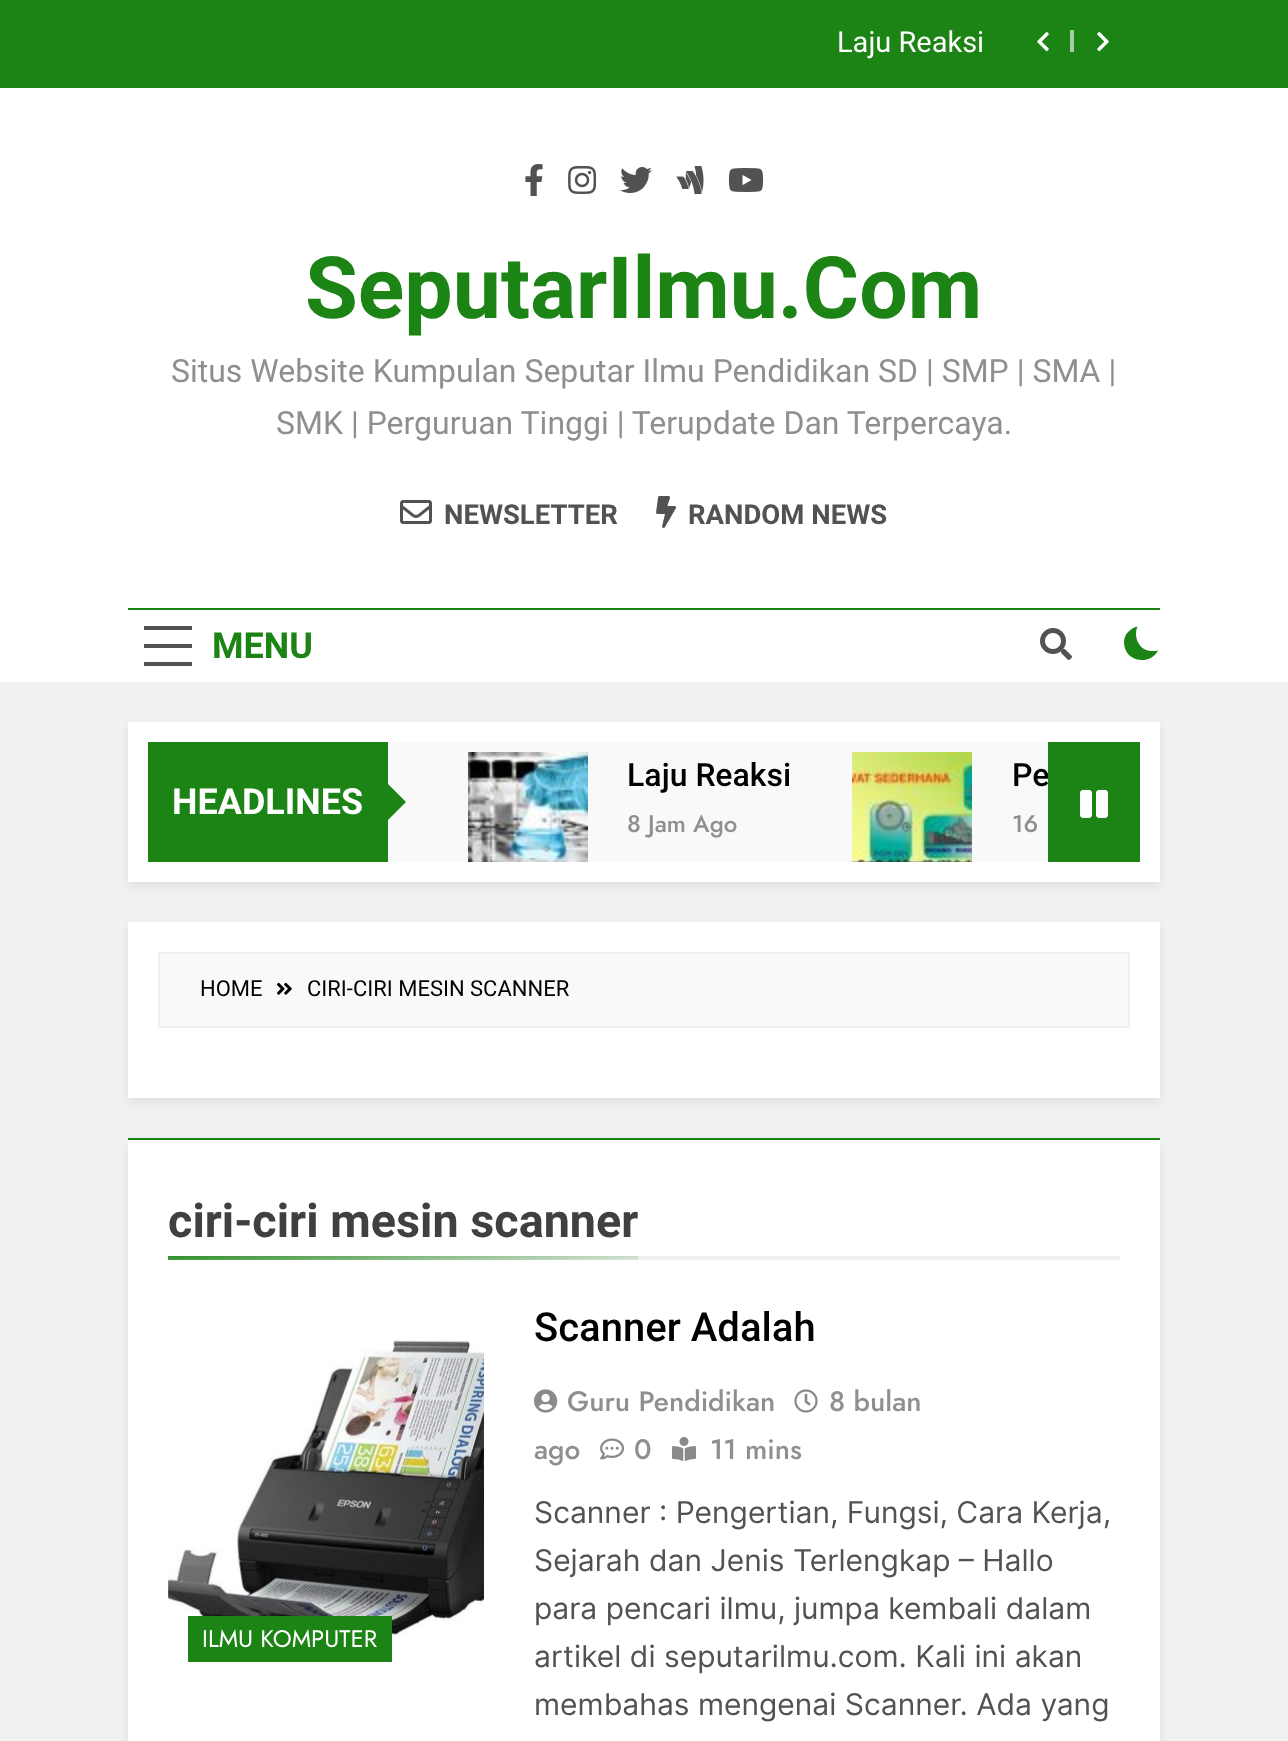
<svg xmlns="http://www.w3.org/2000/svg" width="1288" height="1741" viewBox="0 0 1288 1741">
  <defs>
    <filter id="blur1" x="-50%" y="-200%" width="200%" height="500%"><feGaussianBlur stdDeviation="4"/></filter>
    <clipPath id="clip1"><rect x="1012" y="756" width="36" height="38"/></clipPath>
    <linearGradient id="g1" gradientUnits="userSpaceOnUse" x1="402" y1="1240" x2="404" y2="1276"><stop offset="0" stop-color="#1b8415"/><stop offset="1" stop-color="#f0f0f0"/></linearGradient>
  </defs>
  <rect width="100%" height="100%" fill="#f0f1f2"/>
  <rect x="0" y="0" width="1288" height="88" fill="#1b8415"/>
  <text x="837" y="52" font-family="Roboto" font-size="29" fill="#ffffff">Laju Reaksi</text>
  <image x="1037" y="32" width="12" height="20" href="img1.png"/>
  <rect x="1070" y="30" width="4" height="22" fill="#a4cea1"/>
  <image x="1097" y="32" width="12" height="20" href="img2.png"/>
  <rect x="0" y="88" width="1288" height="594" fill="#ffffff"/>
  <image x="525" y="164" width="18" height="32" href="img3.png"/>
  <image x="568" y="166" width="29" height="28" href="img4.png"/>
  <image x="620" y="167" width="32" height="26" href="img5.png"/>
  <image x="676" y="166" width="28" height="28" href="img6.png"/>
  <image x="728" y="168" width="36" height="24" href="img7.png"/>
  <text x="305" y="318" font-family="Roboto" font-size="86" font-weight="bold" fill="#1b8415">SeputarIlmu.Com</text>
  <text x="171" y="382" font-family="Roboto" font-size="32" fill="#8f8f8f">Situs Website Kumpulan Seputar Ilmu Pendidikan SD | SMP | SMA |</text>
  <text x="276" y="434" font-family="Roboto" font-size="32" fill="#8f8f8f">SMK | Perguruan Tinggi | Terupdate Dan Terpercaya.</text>
  <image x="400" y="500" width="32" height="24" href="img8.png"/>
  <text x="444" y="524" font-family="Roboto" font-size="27.5" font-weight="bold" fill="#525252">NEWSLETTER</text>
  <image x="656" y="496" width="21" height="32" href="img9.png"/>
  <text x="688" y="524" font-family="Roboto" font-size="27.5" font-weight="bold" fill="#525252">RANDOM NEWS</text>
  <rect x="128" y="608" width="1032" height="2" fill="#1b8415"/>
  <rect x="144" y="626" width="48" height="4" fill="#525252"/>
  <rect x="144" y="644" width="48" height="4" fill="#525252"/>
  <rect x="144" y="662" width="48" height="4" fill="#525252"/>
  <text x="212" y="658" font-family="Roboto" font-size="36" font-weight="bold" fill="#1b8415">MENU</text>
  <image x="1040" y="628" width="32" height="32" href="img10.png"/>
  <path d="M1158 650.5L1155 651C1139 652.5 1133 637 1137.5 626.5C1133 627.5 1128.5 630.5 1126 634.5C1124 638 1123.5 642.5 1124.5 646.5C1127.5 662.5 1151 665 1158 650.5Z" fill="#1b8415"/>
  <rect x="128" y="726" width="1032" height="160" fill="#000000" fill-opacity="0.08" filter="url(#blur1)"/>
  <rect x="128" y="722" width="1032" height="160" fill="#ffffff"/>
  <rect x="148" y="742" width="240" height="120" fill="#1b8415"/>
  <text x="172" y="814" font-family="Roboto" font-size="36" font-weight="bold" fill="#ffffff">HEADLINES</text>
  <rect x="388" y="742" width="660" height="120" fill="#f9f9f9"/>
  <path d="M386 822V782L406 802Z" fill="#1b8415"/>
  <image x="468" y="752" width="120" height="110" href="img11.png"/>
  <text x="627" y="786" font-family="Roboto" font-size="32" font-weight="500" fill="#000000">Laju Reaksi</text>
  <text x="627" y="832" font-family="Jost" font-size="24" font-weight="500" fill="#8f8f8f">8 Jam Ago</text>
  <image x="852" y="752" width="120" height="110" href="img12.png"/>
  <g clip-path="url(#clip1)">
    <text x="1012" y="786" font-family="Roboto" font-size="32" font-weight="500" fill="#000000">Pe</text>
  </g>
  <text x="1012" y="832" font-family="Jost" font-size="24" font-weight="500" fill="#8f8f8f">16</text>
  <rect x="1048" y="742" width="92" height="120" fill="#1b8415"/>
  <image x="1080" y="789" width="28" height="29" href="img13.png"/>
  <rect x="128" y="926" width="1032" height="176" fill="#000000" fill-opacity="0.08" filter="url(#blur1)"/>
  <rect x="128" y="922" width="1032" height="176" fill="#ffffff"/>
  <rect x="159" y="953" width="970" height="74" fill="#f9f9f9" stroke="#ecf0f1" stroke-width="2"/>
  <text x="200" y="996" font-family="Roboto" font-size="22" fill="#000000">HOME</text>
  <image x="277" y="982" width="15" height="13" href="img14.png"/>
  <text x="307" y="996" font-family="Roboto" font-size="22" fill="#000000">CIRI-CIRI MESIN SCANNER</text>
  <rect x="128" y="1144" width="1032" height="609" fill="#000000" fill-opacity="0.08" filter="url(#blur1)"/>
  <rect x="128" y="1140" width="1032" height="601" fill="#ffffff"/>
  <rect x="128" y="1138" width="1032" height="2" fill="#1b8415"/>
  <rect x="638" y="1256" width="482" height="4" fill="#f0f0f0"/>
  <text x="168" y="1237" font-family="Roboto" font-size="46.75" font-weight="bold" fill="#404040">ciri-ciri mesin scanner</text>
  <rect x="168" y="1256" width="470" height="4" fill="url(#g1)"/>
  <image x="168" y="1340" width="316" height="306" href="img15.png"/>
  <rect x="188" y="1616" width="204" height="46" fill="#1b8415"/>
  <text x="202" y="1647" font-family="Jost" font-size="24" fill="#ffffff">ILMU KOMPUTER</text>
  <text x="534" y="1341" font-family="Roboto" font-size="40" font-weight="500" fill="#000000">Scanner Adalah</text>
  <image x="534" y="1389" width="24" height="24" href="img16.png"/>
  <text x="567" y="1411" font-family="Jost" font-size="28" font-weight="500" fill="#8f8f8f">Guru Pendidikan</text>
  <image x="794" y="1389" width="24" height="24" href="img17.png"/>
  <text x="829" y="1411" font-family="Jost" font-size="28" font-weight="500" fill="#8f8f8f">8 bulan</text>
  <text x="534" y="1459" font-family="Jost" font-size="28" font-weight="500" fill="#8f8f8f">ago</text>
  <image x="600" y="1438" width="24" height="22" href="img18.png"/>
  <text x="634" y="1459" font-family="Jost" font-size="28" font-weight="500" fill="#8f8f8f">0</text>
  <image x="672" y="1437" width="24" height="24" href="img19.png"/>
  <text x="710" y="1459" font-family="Jost" font-size="28" font-weight="500" fill="#8f8f8f">11 mins</text>
  <text x="534" y="1523" font-family="Inter" font-size="30" fill="#525252">Scanner : Pengertian, Fungsi, Cara Kerja,</text>
  <text x="534" y="1571" font-family="Inter" font-size="30" fill="#525252">Sejarah dan Jenis Terlengkap – Hallo</text>
  <text x="534" y="1619" font-family="Inter" font-size="30" fill="#525252">para pencari ilmu, jumpa kembali dalam</text>
  <text x="534" y="1667" font-family="Inter" font-size="30" fill="#525252">artikel di seputarilmu.com. Kali ini akan</text>
  <text x="534" y="1715" font-family="Inter" font-size="30" fill="#525252">membahas mengenai Scanner. Ada yang</text>
</svg>
